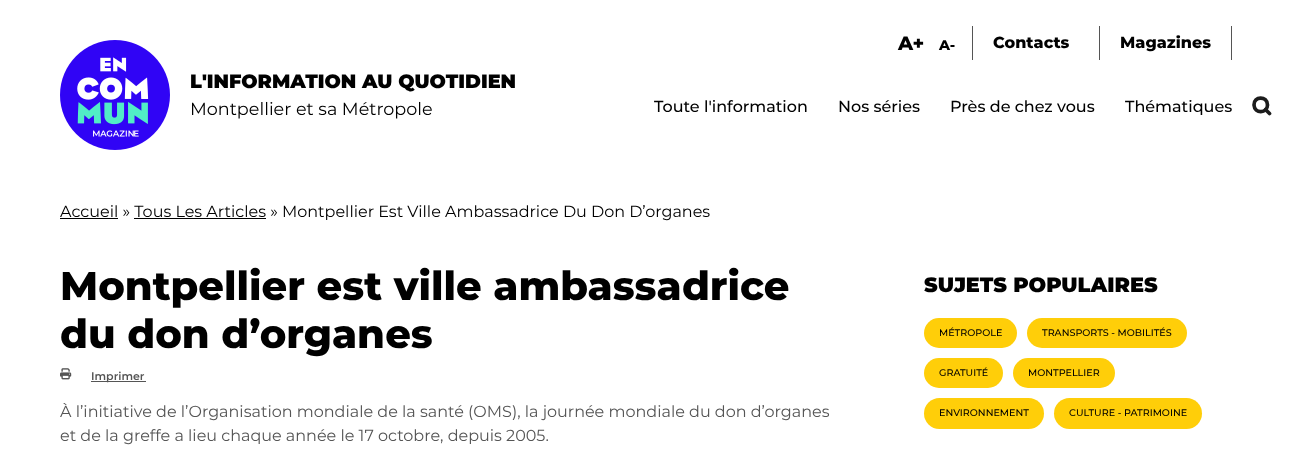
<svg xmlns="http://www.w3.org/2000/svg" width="1292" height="456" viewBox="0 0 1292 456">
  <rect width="100%" height="100%" fill="#ffffff"/>
  <image x="60" y="40" width="110" height="110" href="img1.png"/>
  <text x="190" y="88" font-family="Montserrat" font-size="19.25" font-weight="900" fill="#000000">L'INFORMATION AU QUOTIDIEN</text>
  <text x="190" y="115" font-family="Montserrat" font-size="17.6" fill="#000000">Montpellier et sa Métropole</text>
  <text x="898" y="50" font-family="Montserrat" font-size="19.25" font-weight="800" fill="#000000">A+</text>
  <text x="939" y="50" font-family="Montserrat" font-size="14" font-weight="800" fill="#000000">A-</text>
  <rect x="972" y="26" width="1" height="34" fill="#555555"/>
  <text x="993" y="48" font-family="Montserrat" font-size="16" font-weight="800" fill="#000000">Contacts</text>
  <rect x="1231" y="26" width="1" height="34" fill="#555555"/>
  <rect x="1099" y="26" width="1" height="34" fill="#555555"/>
  <text x="1120" y="48" font-family="Montserrat" font-size="16" font-weight="800" fill="#000000">Magazines</text>
  <text x="654" y="112" font-family="Montserrat" font-size="16" font-weight="500" fill="#000000">Toute l'information</text>
  <text x="838" y="112" font-family="Montserrat" font-size="16" font-weight="500" fill="#000000">Nos séries</text>
  <text x="950" y="112" font-family="Montserrat" font-size="16" font-weight="500" fill="#000000">Près de chez vous</text>
  <text x="1125" y="112" font-family="Montserrat" font-size="16" font-weight="500" fill="#000000">Thématiques</text>
  <path d="M1267.5 105C1267.5 113.5 1254.5 114 1254 105C1253.5 96 1267.5 95.5 1267.5 105Z" fill="none" stroke="#1c1c1c" stroke-width="3.7" stroke-linecap="round"/>
  <path d="M1269.5 113.5L1265.5 109.5" fill="none" stroke="#1c1c1c" stroke-width="3.7" stroke-linecap="round" stroke-linejoin="round"/>
  <rect x="60" y="218" width="58" height="1" fill="#000000"/>
  <text x="60" y="217" font-family="Montserrat" font-size="16" fill="#000000">Accueil » Tous Les Articles » Montpellier Est Ville Ambassadrice Du Don D’organes</text>
  <rect x="134" y="218" width="132" height="1" fill="#000000"/>
  <text x="60" y="300" font-family="Montserrat" font-size="40" font-weight="800" fill="#000000">Montpellier est ville ambassadrice</text>
  <text x="60" y="348" font-family="Montserrat" font-size="40" font-weight="800" fill="#000000">du don d’organes</text>
  <image x="60" y="368" width="12" height="12" href="img2.png"/>
  <rect x="91" y="381" width="55" height="1" fill="#555555"/>
  <text x="91" y="380" font-family="Montserrat" font-size="11" font-weight="600" fill="#555555">Imprimer</text>
  <text x="60" y="417" font-family="Montserrat" font-size="16" fill="#555555">À l’initiative de l’Organisation mondiale de la santé (OMS), la journée mondiale du don d’organes</text>
  <text x="60" y="441" font-family="Montserrat" font-size="16" fill="#555555">et de la greffe a lieu chaque année le 17 octobre, depuis 2005.</text>
  <text x="924" y="292" font-family="Montserrat" font-size="20.75" font-weight="900" fill="#000000">SUJETS POPULAIRES</text>
  <rect x="924" y="318" width="93" height="30" rx="15" fill="#ffce09"/>
  <text x="939" y="336" font-family="Montserrat" font-size="9.6" font-weight="500" fill="#000000">MÉTROPOLE</text>
  <rect x="1027" y="318" width="160" height="30" rx="15" fill="#ffce09"/>
  <text x="1042" y="336" font-family="Montserrat" font-size="9.6" font-weight="500" fill="#000000">TRANSPORTS - MOBILITÉS</text>
  <rect x="924" y="358" width="79" height="30" rx="15" fill="#ffce09"/>
  <text x="939" y="376" font-family="Montserrat" font-size="9.6" font-weight="500" fill="#000000">GRATUITÉ</text>
  <rect x="1013" y="358" width="102" height="30" rx="15" fill="#ffce09"/>
  <text x="1028" y="376" font-family="Montserrat" font-size="9.6" font-weight="500" fill="#000000">MONTPELLIER</text>
  <rect x="924" y="398" width="120" height="31" rx="15.5" fill="#ffce09"/>
  <text x="939" y="416" font-family="Montserrat" font-size="9.6" font-weight="500" fill="#000000">ENVIRONNEMENT</text>
  <rect x="1054" y="398" width="148" height="31" rx="15.5" fill="#ffce09"/>
  <text x="1069" y="416" font-family="Montserrat" font-size="9.6" font-weight="500" fill="#000000">CULTURE - PATRIMOINE</text>
</svg>
